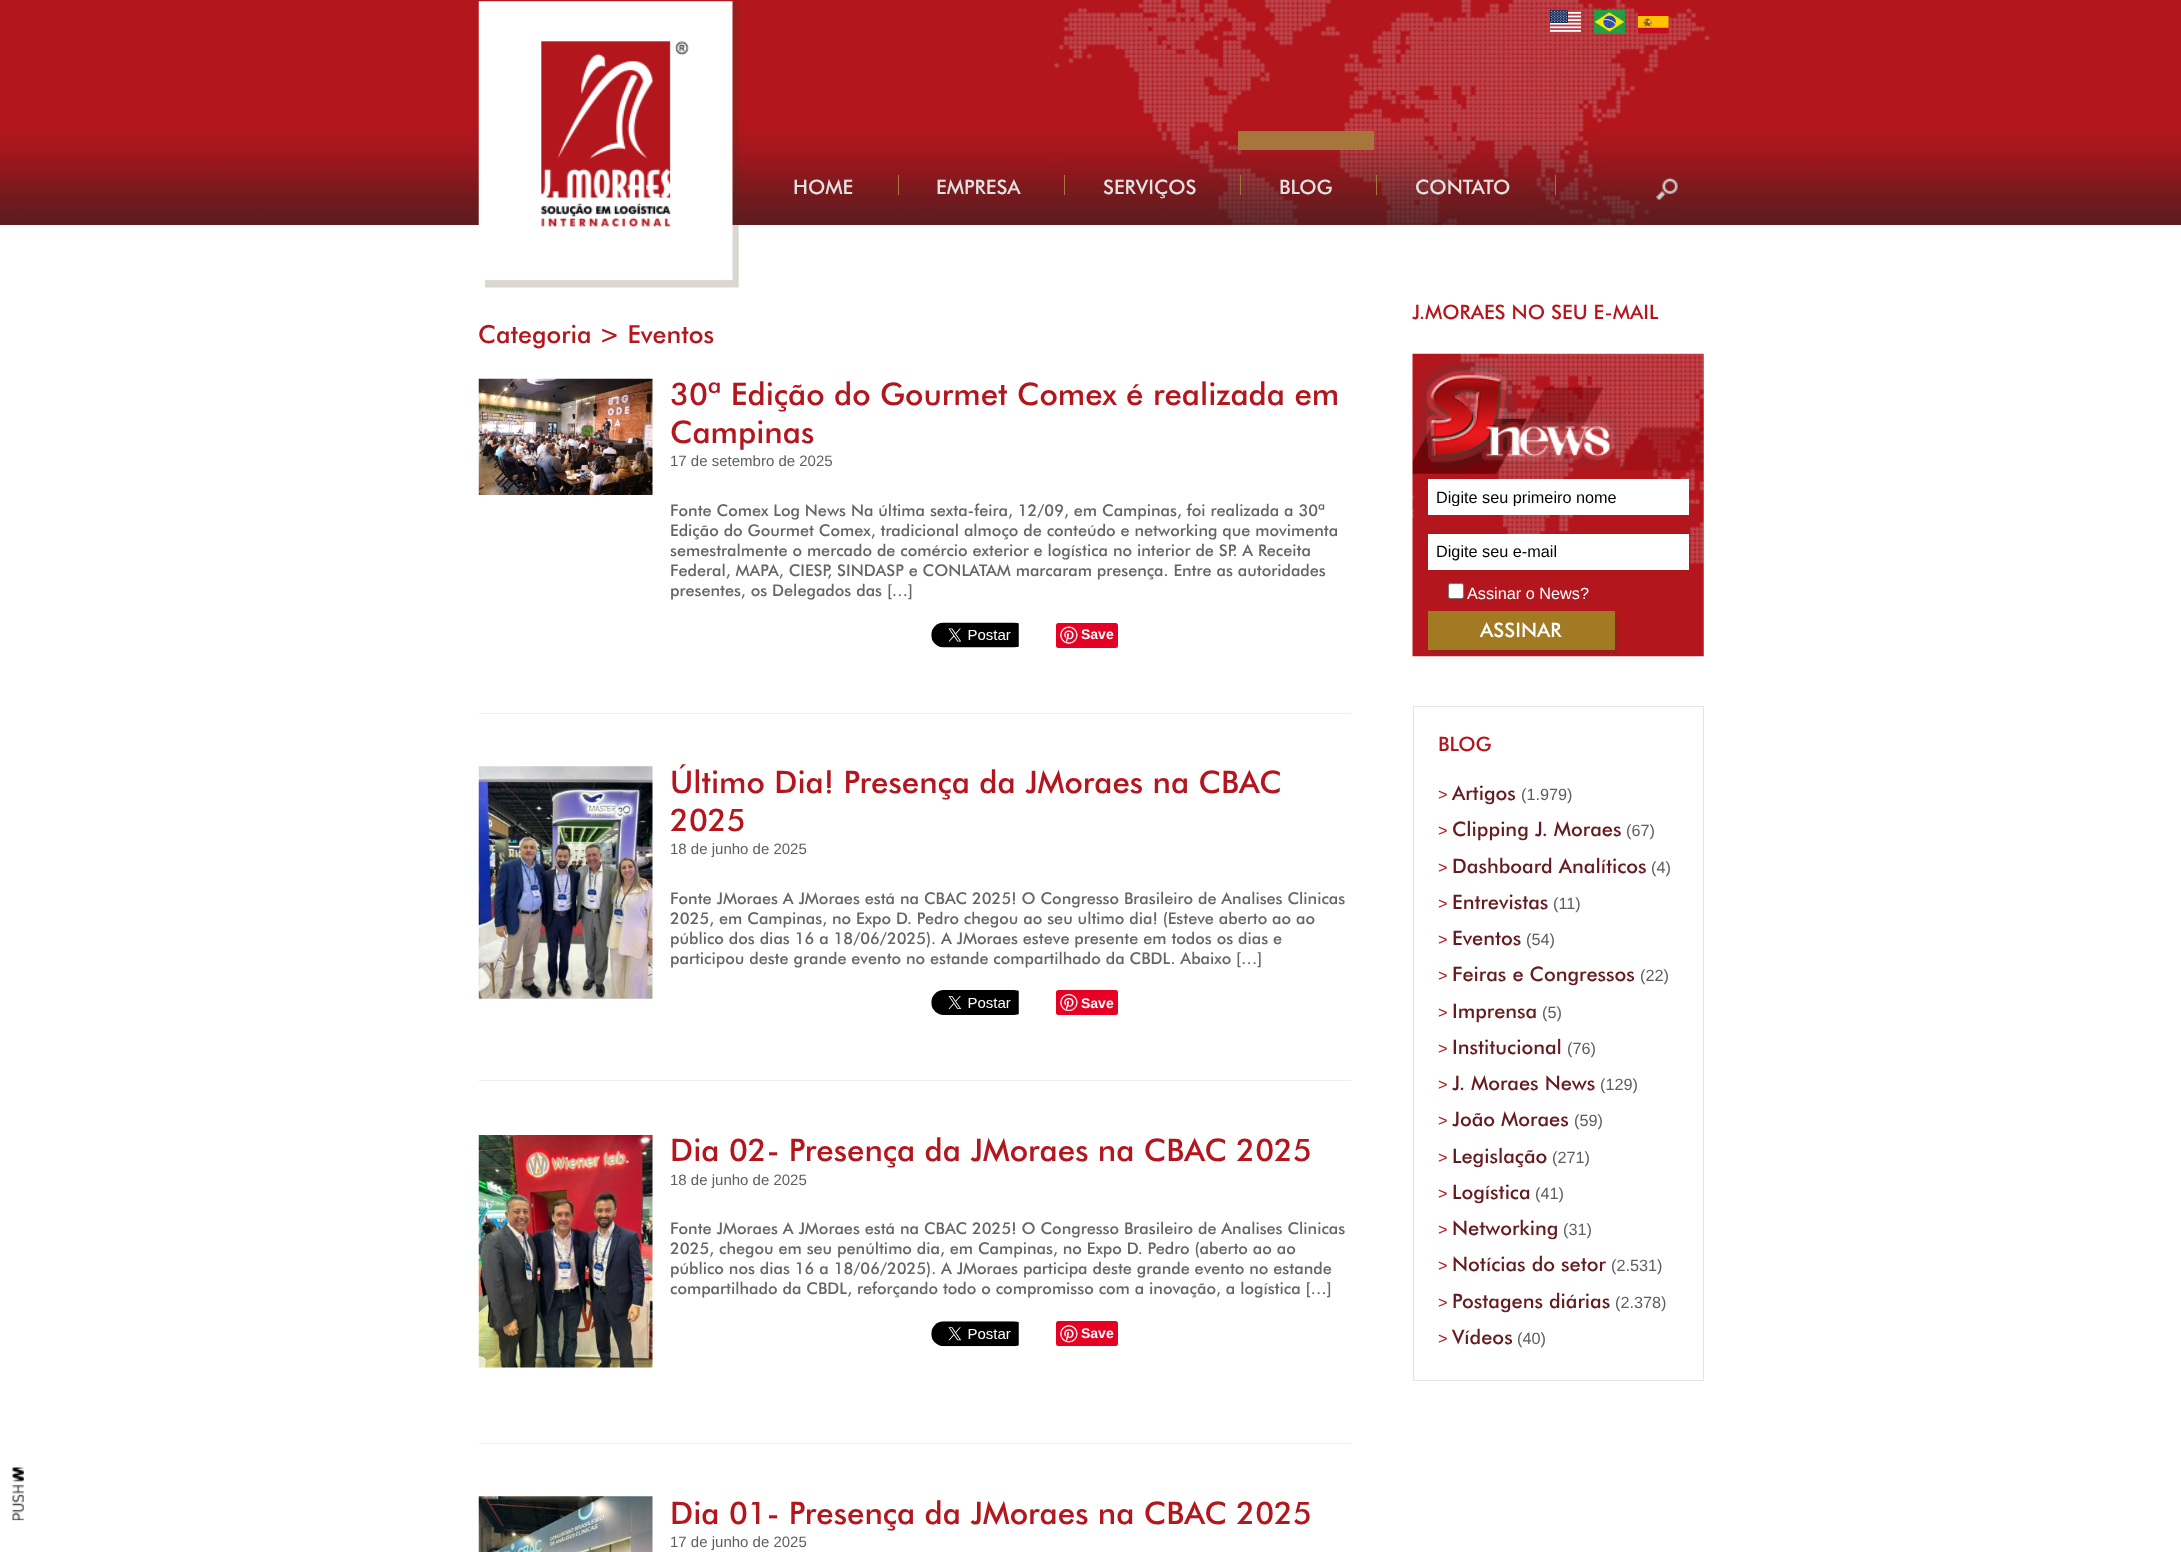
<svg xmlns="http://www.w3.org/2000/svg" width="2181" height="1552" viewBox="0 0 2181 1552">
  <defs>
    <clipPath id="clip1"><rect x="1436" y="488" width="244" height="18"/></clipPath>
  </defs>
  <rect width="100%" height="100%" fill="#ffffff"/>
  <image x="12" y="1467" width="12" height="54" href="img1.png"/>
  <image x="0" y="0" width="2181" height="225" href="img2.png"/>
  <image x="1550" y="10" width="31" height="24" href="img3.png"/>
  <image x="1594" y="10" width="31" height="24" href="img4.png"/>
  <image x="1638" y="10" width="31" height="24" href="img5.png"/>
  <image x="478" y="1" width="261" height="287" href="img6.png"/>
  <text x="793" y="194" font-family="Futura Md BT" font-size="20" font-weight="500" fill="#e2e2e2">HOME</text>
  <rect x="898" y="175" width="1" height="20" fill="#a6763c"/>
  <text x="936" y="194" font-family="Futura Md BT" font-size="20" font-weight="500" fill="#e2e2e2">EMPRESA</text>
  <rect x="1064" y="175" width="1" height="20" fill="#a6763c"/>
  <text x="1103" y="194" font-family="Futura Md BT" font-size="20" font-weight="500" fill="#e2e2e2">SERVIÇOS</text>
  <rect x="1240" y="175" width="1" height="20" fill="#a6763c"/>
  <rect x="1238" y="131" width="136" height="19" fill="#a6763c"/>
  <text x="1279" y="194" font-family="Futura Md BT" font-size="20" font-weight="500" fill="#e2e2e2">BLOG</text>
  <rect x="1376" y="175" width="1" height="20" fill="#a6763c"/>
  <text x="1415" y="194" font-family="Futura Md BT" font-size="20" font-weight="500" fill="#e2e2e2">CONTATO</text>
  <rect x="1555" y="175" width="1" height="20" fill="#a6763c"/>
  <image x="1656" y="178" width="22" height="22" href="img7.png"/>
  <text x="478" y="343" font-family="Futura Md BT" font-size="25" font-weight="500" fill="#b4161d">Categoria &gt; Eventos</text>
  <rect x="479" y="713" width="872" height="1" fill="#eeeeee"/>
  <image x="478" y="378" width="175" height="117" href="img8.png"/>
  <text x="670" y="405" font-family="Futura Md BT" font-size="31.25" font-weight="500" fill="#b4161d">30ª Edição do Gourmet Comex é realizada em</text>
  <text x="670" y="443" font-family="Futura Md BT" font-size="31.25" font-weight="500" fill="#b4161d">Campinas</text>
  <text x="670" y="466" font-family="Liberation Sans" font-size="15" fill="#5e5e5e">17 de setembro de 2025</text>
  <text x="670" y="516" font-family="Futura Md BT" font-size="16.25" font-weight="500" fill="#666666">Fonte Comex Log News Na última sexta-feira, 12/09, em Campinas, foi realizada a 30ª</text>
  <text x="670" y="536" font-family="Futura Md BT" font-size="16.25" font-weight="500" fill="#666666">Edição do Gourmet Comex, tradicional almoço de conteúdo e networking que movimenta</text>
  <text x="670" y="556" font-family="Futura Md BT" font-size="16.25" font-weight="500" fill="#666666">semestralmente o mercado de comércio exterior e logística no interior de SP. A Receita</text>
  <text x="670" y="576" font-family="Futura Md BT" font-size="16.25" font-weight="500" fill="#666666">Federal, MAPA, CIESP, SINDASP e CONLATAM marcaram presença. Entre as autoridades</text>
  <text x="670" y="596" font-family="Futura Md BT" font-size="16.25" font-weight="500" fill="#666666">presentes, os Delegados das […]</text>
  <image x="931" y="622" width="88" height="26" href="img9.png"/>
  <rect x="1056" y="623" width="62" height="25" rx="2.5" fill="#e60023"/>
  <image x="1060" y="626" width="18" height="18" href="img10.png"/>
  <text x="1081" y="639" font-family="Liberation Sans" font-size="14" font-weight="bold" fill="#ffffff">Save</text>
  <rect x="479" y="1080" width="872" height="1" fill="#eeeeee"/>
  <image x="478" y="766" width="175" height="233" href="img11.png"/>
  <text x="670" y="793" font-family="Futura Md BT" font-size="31.25" font-weight="500" fill="#b4161d">Último Dia! Presença da JMoraes na CBAC</text>
  <text x="670" y="831" font-family="Futura Md BT" font-size="31.25" font-weight="500" fill="#b4161d">2025</text>
  <text x="670" y="854" font-family="Liberation Sans" font-size="15" fill="#5e5e5e">18 de junho de 2025</text>
  <text x="670" y="904" font-family="Futura Md BT" font-size="16.25" font-weight="500" fill="#666666">Fonte JMoraes A JMoraes está na CBAC 2025! O Congresso Brasileiro de Analises Clinicas</text>
  <text x="670" y="924" font-family="Futura Md BT" font-size="16.25" font-weight="500" fill="#666666">2025, em Campinas, no Expo D. Pedro chegou ao seu ultimo dia! (Esteve aberto ao ao</text>
  <text x="670" y="944" font-family="Futura Md BT" font-size="16.25" font-weight="500" fill="#666666">público dos dias 16 a 18/06/2025). A JMoraes esteve presente em todos os dias e</text>
  <text x="670" y="964" font-family="Futura Md BT" font-size="16.25" font-weight="500" fill="#666666">participou deste grande evento no estande compartilhado da CBDL. Abaixo […]</text>
  <image x="931" y="990" width="88" height="25" href="img12.png"/>
  <rect x="1056" y="990" width="62" height="25" rx="2.5" fill="#e60023"/>
  <image x="1060" y="994" width="18" height="17" href="img13.png"/>
  <text x="1081" y="1008" font-family="Liberation Sans" font-size="14" font-weight="bold" fill="#ffffff">Save</text>
  <rect x="479" y="1443" width="872" height="1" fill="#eeeeee"/>
  <image x="478" y="1135" width="175" height="233" href="img14.png"/>
  <text x="670" y="1161" font-family="Futura Md BT" font-size="31.25" font-weight="500" fill="#b4161d">Dia 02- Presença da JMoraes na CBAC 2025</text>
  <text x="670" y="1185" font-family="Liberation Sans" font-size="15" fill="#5e5e5e">18 de junho de 2025</text>
  <text x="670" y="1234" font-family="Futura Md BT" font-size="16.25" font-weight="500" fill="#666666">Fonte JMoraes A JMoraes está na CBAC 2025! O Congresso Brasileiro de Analises Clinicas</text>
  <text x="670" y="1254" font-family="Futura Md BT" font-size="16.25" font-weight="500" fill="#666666">2025, chegou em seu penúltimo dia, em Campinas, no Expo D. Pedro (aberto ao ao</text>
  <text x="670" y="1274" font-family="Futura Md BT" font-size="16.25" font-weight="500" fill="#666666">público nos dias 16 a 18/06/2025). A JMoraes participa deste grande evento no estande</text>
  <text x="670" y="1294" font-family="Futura Md BT" font-size="16.25" font-weight="500" fill="#666666">compartilhado da CBDL, reforçando todo o compromisso com a inovação, a logística […]</text>
  <image x="931" y="1321" width="88" height="26" href="img15.png"/>
  <rect x="1056" y="1321" width="62" height="25" rx="2.5" fill="#e60023"/>
  <image x="1060" y="1325" width="18" height="18" href="img16.png"/>
  <text x="1081" y="1338" font-family="Liberation Sans" font-size="14" font-weight="bold" fill="#ffffff">Save</text>
  <image x="478" y="1496" width="175" height="56" href="img17.png"/>
  <text x="670" y="1524" font-family="Futura Md BT" font-size="31.25" font-weight="500" fill="#b4161d">Dia 01- Presença da JMoraes na CBAC 2025</text>
  <text x="670" y="1547" font-family="Liberation Sans" font-size="15" fill="#5e5e5e">17 de junho de 2025</text>
  <text x="1412" y="319" font-family="Futura Md BT" font-size="20" font-weight="500" fill="#b4161d">J.MORAES NO SEU E-MAIL</text>
  <image x="1412" y="353" width="292" height="304" href="img18.png"/>
  <rect x="1428" y="479" width="261" height="36" fill="#ffffff"/>
  <g clip-path="url(#clip1)">
    <text x="1436" y="503" font-family="Liberation Sans" font-size="16.25" fill="#000000">Digite seu primeiro nome</text>
  </g>
  <rect x="1428" y="534" width="261" height="36" fill="#ffffff"/>
  <text x="1436" y="557" font-family="Liberation Sans" font-size="16.25" fill="#000000">Digite seu e-mail</text>
  <rect x="1448.5" y="583.5" width="15" height="15" rx="2" fill="#ffffff" stroke="#767676"/>
  <text x="1467" y="599" font-family="Liberation Sans" font-size="16.25" fill="#ffffff">Assinar o News?</text>
  <path d="M1431 650V654H1619V615H1615V650Z" fill="#9e1c1c"/>
  <rect x="1428" y="611" width="187" height="39" fill="#a27a24"/>
  <text x="1480" y="637" font-family="Futura Md BT" font-size="20" font-weight="500" fill="#ffffff">ASSINAR</text>
  <rect x="1413.5" y="706.5" width="290" height="674" fill="none" stroke="#e5e5e5"/>
  <text x="1438" y="751" font-family="Futura Md BT" font-size="20" font-weight="500" fill="#b4161d">BLOG</text>
  <text x="1438" y="800" font-family="Liberation Sans" font-size="16.25" fill="#b4161d">&gt;</text>
  <text x="1452" y="800" font-family="Futura Md BT" font-size="20" font-weight="500" fill="#651b1f">Artigos</text>
  <text x="1521" y="800" font-family="Liberation Sans" font-size="16.25" fill="#5e5e5e">(1.979)</text>
  <text x="1438" y="836" font-family="Liberation Sans" font-size="16.25" fill="#b4161d">&gt;</text>
  <text x="1452" y="836" font-family="Futura Md BT" font-size="20" font-weight="500" fill="#651b1f">Clipping J. Moraes</text>
  <text x="1626" y="836" font-family="Liberation Sans" font-size="16.25" fill="#5e5e5e">(67)</text>
  <text x="1438" y="873" font-family="Liberation Sans" font-size="16.25" fill="#b4161d">&gt;</text>
  <text x="1452" y="873" font-family="Futura Md BT" font-size="20" font-weight="500" fill="#651b1f">Dashboard Analíticos</text>
  <text x="1651" y="873" font-family="Liberation Sans" font-size="16.25" fill="#5e5e5e">(4)</text>
  <text x="1438" y="909" font-family="Liberation Sans" font-size="16.25" fill="#b4161d">&gt;</text>
  <text x="1452" y="909" font-family="Futura Md BT" font-size="20" font-weight="500" fill="#651b1f">Entrevistas</text>
  <text x="1553" y="909" font-family="Liberation Sans" font-size="16.25" fill="#5e5e5e">(11)</text>
  <text x="1438" y="945" font-family="Liberation Sans" font-size="16.25" fill="#b4161d">&gt;</text>
  <text x="1452" y="945" font-family="Futura Md BT" font-size="20" font-weight="500" fill="#651b1f">Eventos</text>
  <text x="1526" y="945" font-family="Liberation Sans" font-size="16.25" fill="#5e5e5e">(54)</text>
  <text x="1438" y="981" font-family="Liberation Sans" font-size="16.25" fill="#b4161d">&gt;</text>
  <text x="1452" y="981" font-family="Futura Md BT" font-size="20" font-weight="500" fill="#651b1f">Feiras e Congressos</text>
  <text x="1640" y="981" font-family="Liberation Sans" font-size="16.25" fill="#5e5e5e">(22)</text>
  <text x="1438" y="1018" font-family="Liberation Sans" font-size="16.25" fill="#b4161d">&gt;</text>
  <text x="1452" y="1018" font-family="Futura Md BT" font-size="20" font-weight="500" fill="#651b1f">Imprensa</text>
  <text x="1542" y="1018" font-family="Liberation Sans" font-size="16.25" fill="#5e5e5e">(5)</text>
  <text x="1438" y="1054" font-family="Liberation Sans" font-size="16.25" fill="#b4161d">&gt;</text>
  <text x="1452" y="1054" font-family="Futura Md BT" font-size="20" font-weight="500" fill="#651b1f">Institucional</text>
  <text x="1567" y="1054" font-family="Liberation Sans" font-size="16.25" fill="#5e5e5e">(76)</text>
  <text x="1438" y="1090" font-family="Liberation Sans" font-size="16.25" fill="#b4161d">&gt;</text>
  <text x="1452" y="1090" font-family="Futura Md BT" font-size="20" font-weight="500" fill="#651b1f">J. Moraes News</text>
  <text x="1600" y="1090" font-family="Liberation Sans" font-size="16.25" fill="#5e5e5e">(129)</text>
  <text x="1438" y="1126" font-family="Liberation Sans" font-size="16.25" fill="#b4161d">&gt;</text>
  <text x="1452" y="1126" font-family="Futura Md BT" font-size="20" font-weight="500" fill="#651b1f">João Moraes</text>
  <text x="1574" y="1126" font-family="Liberation Sans" font-size="16.25" fill="#5e5e5e">(59)</text>
  <text x="1438" y="1163" font-family="Liberation Sans" font-size="16.25" fill="#b4161d">&gt;</text>
  <text x="1452" y="1163" font-family="Futura Md BT" font-size="20" font-weight="500" fill="#651b1f">Legislação</text>
  <text x="1552" y="1163" font-family="Liberation Sans" font-size="16.25" fill="#5e5e5e">(271)</text>
  <text x="1438" y="1199" font-family="Liberation Sans" font-size="16.25" fill="#b4161d">&gt;</text>
  <text x="1452" y="1199" font-family="Futura Md BT" font-size="20" font-weight="500" fill="#651b1f">Logística</text>
  <text x="1535" y="1199" font-family="Liberation Sans" font-size="16.25" fill="#5e5e5e">(41)</text>
  <text x="1438" y="1235" font-family="Liberation Sans" font-size="16.25" fill="#b4161d">&gt;</text>
  <text x="1452" y="1235" font-family="Futura Md BT" font-size="20" font-weight="500" fill="#651b1f">Networking</text>
  <text x="1563" y="1235" font-family="Liberation Sans" font-size="16.25" fill="#5e5e5e">(31)</text>
  <text x="1438" y="1271" font-family="Liberation Sans" font-size="16.25" fill="#b4161d">&gt;</text>
  <text x="1452" y="1271" font-family="Futura Md BT" font-size="20" font-weight="500" fill="#651b1f">Notícias do setor</text>
  <text x="1611" y="1271" font-family="Liberation Sans" font-size="16.25" fill="#5e5e5e">(2.531)</text>
  <text x="1438" y="1308" font-family="Liberation Sans" font-size="16.25" fill="#b4161d">&gt;</text>
  <text x="1452" y="1308" font-family="Futura Md BT" font-size="20" font-weight="500" fill="#651b1f">Postagens diárias</text>
  <text x="1615" y="1308" font-family="Liberation Sans" font-size="16.25" fill="#5e5e5e">(2.378)</text>
  <text x="1438" y="1344" font-family="Liberation Sans" font-size="16.25" fill="#b4161d">&gt;</text>
  <text x="1452" y="1344" font-family="Futura Md BT" font-size="20" font-weight="500" fill="#651b1f">Vídeos</text>
  <text x="1517" y="1344" font-family="Liberation Sans" font-size="16.25" fill="#5e5e5e">(40)</text>
</svg>
